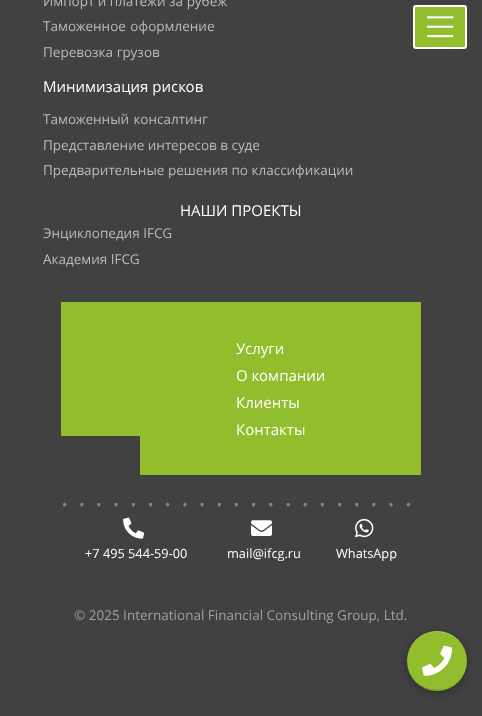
<svg xmlns="http://www.w3.org/2000/svg" width="482" height="716" viewBox="0 0 482 716">
  <defs>
    <filter id="blur1" x="-50%" y="-200%" width="200%" height="500%"><feGaussianBlur stdDeviation="5"/></filter>
  </defs>
  <rect width="100%" height="100%" fill="#414141"/>
  <text x="43" y="6" font-family="Open Sans" font-size="13.5" fill="#bbbbbb">Импорт и платежи за рубеж</text>
  <text x="43" y="31" word-spacing="1" font-family="Open Sans" font-size="13.5" fill="#bbbbbb">Таможенное оформление</text>
  <text x="43" y="57" font-family="Open Sans" font-size="13.5" fill="#bbbbbb">Перевозка грузов</text>
  <text x="43" y="92" font-family="Open Sans" font-size="15" fill="#ffffff">Минимизация рисков</text>
  <text x="43" y="124" word-spacing="1" font-family="Open Sans" font-size="13.5" fill="#bbbbbb">Таможенный консалтинг</text>
  <text x="43" y="150" font-family="Open Sans" font-size="13.5" fill="#bbbbbb">Представление интересов в суде</text>
  <text x="43" y="175" font-family="Open Sans" font-size="13.5" fill="#bbbbbb">Предварительные решения по классификации</text>
  <text x="180" y="216" font-family="Open Sans" font-size="15" fill="#ffffff">НАШИ ПРОЕКТЫ</text>
  <text x="43" y="238" font-family="Open Sans" font-size="13.5" fill="#bbbbbb">Энциклопедия IFCG</text>
  <text x="43" y="264" font-family="Open Sans" font-size="13.5" fill="#bbbbbb">Академия IFCG</text>
  <rect x="61" y="302" width="360" height="173" fill="#92bd2c"/>
  <text x="236" y="354" font-family="Open Sans" font-size="15" fill="#ffffff">Услуги</text>
  <text x="236" y="381" font-family="Open Sans" font-size="15" fill="#ffffff">О компании</text>
  <text x="236" y="408" font-family="Open Sans" font-size="15" fill="#ffffff">Клиенты</text>
  <text x="236" y="435" font-family="Open Sans" font-size="15" fill="#ffffff">Контакты</text>
  <rect x="61" y="436" width="79" height="39" fill="#414141"/>
  <text x="61" y="506" font-family="Open Sans" font-size="27" letter-spacing="10" fill="#888888">.....................</text>
  <image x="123" y="517" width="22" height="22" href="img1.png"/>
  <text x="85" y="558" font-family="Open Sans" font-size="12.75" fill="#ffffff">+7 495 544-59-00</text>
  <image x="251" y="520" width="21" height="16" href="img2.png"/>
  <text x="227" y="558" font-family="Open Sans" font-size="12.75" fill="#ffffff">mail@ifcg.ru</text>
  <image x="355" y="518" width="19" height="20" href="img3.png"/>
  <text x="336" y="558" font-family="Open Sans" font-size="12.75" fill="#ffffff">WhatsApp</text>
  <text x="74" y="620" font-family="Open Sans" font-size="13.5" fill="#a0a0a0">© 2025 International Financial Consulting Group, Ltd.</text>
  <rect x="407" y="633" width="60" height="60" rx="30" fill="#000000" fill-opacity="0.3" filter="url(#blur1)"/>
  <circle cx="437" cy="661" r="30" fill="#92bd2c"/>
  <path d="M407 661C407 667 409 673 412 678C429 702 467 690 467 661C466 699 408 699 407 661Z" fill="#000000" fill-opacity="0.15"/>
  <path d="M437 632C454 632 467 645 467 661C467 655 465 649 462 644C445 620 407 632 407 661C407 645 420 632 437 632Z" fill="#ffffff" fill-opacity="0.25"/>
  <image x="422" y="645" width="31" height="31" href="img4.png"/>
  <rect x="414" y="6" width="52" height="42" rx="2" fill="#92bd2c" stroke="#ffffff" stroke-width="2"/>
  <image x="427" y="16" width="27" height="22" href="img5.png"/>
</svg>
